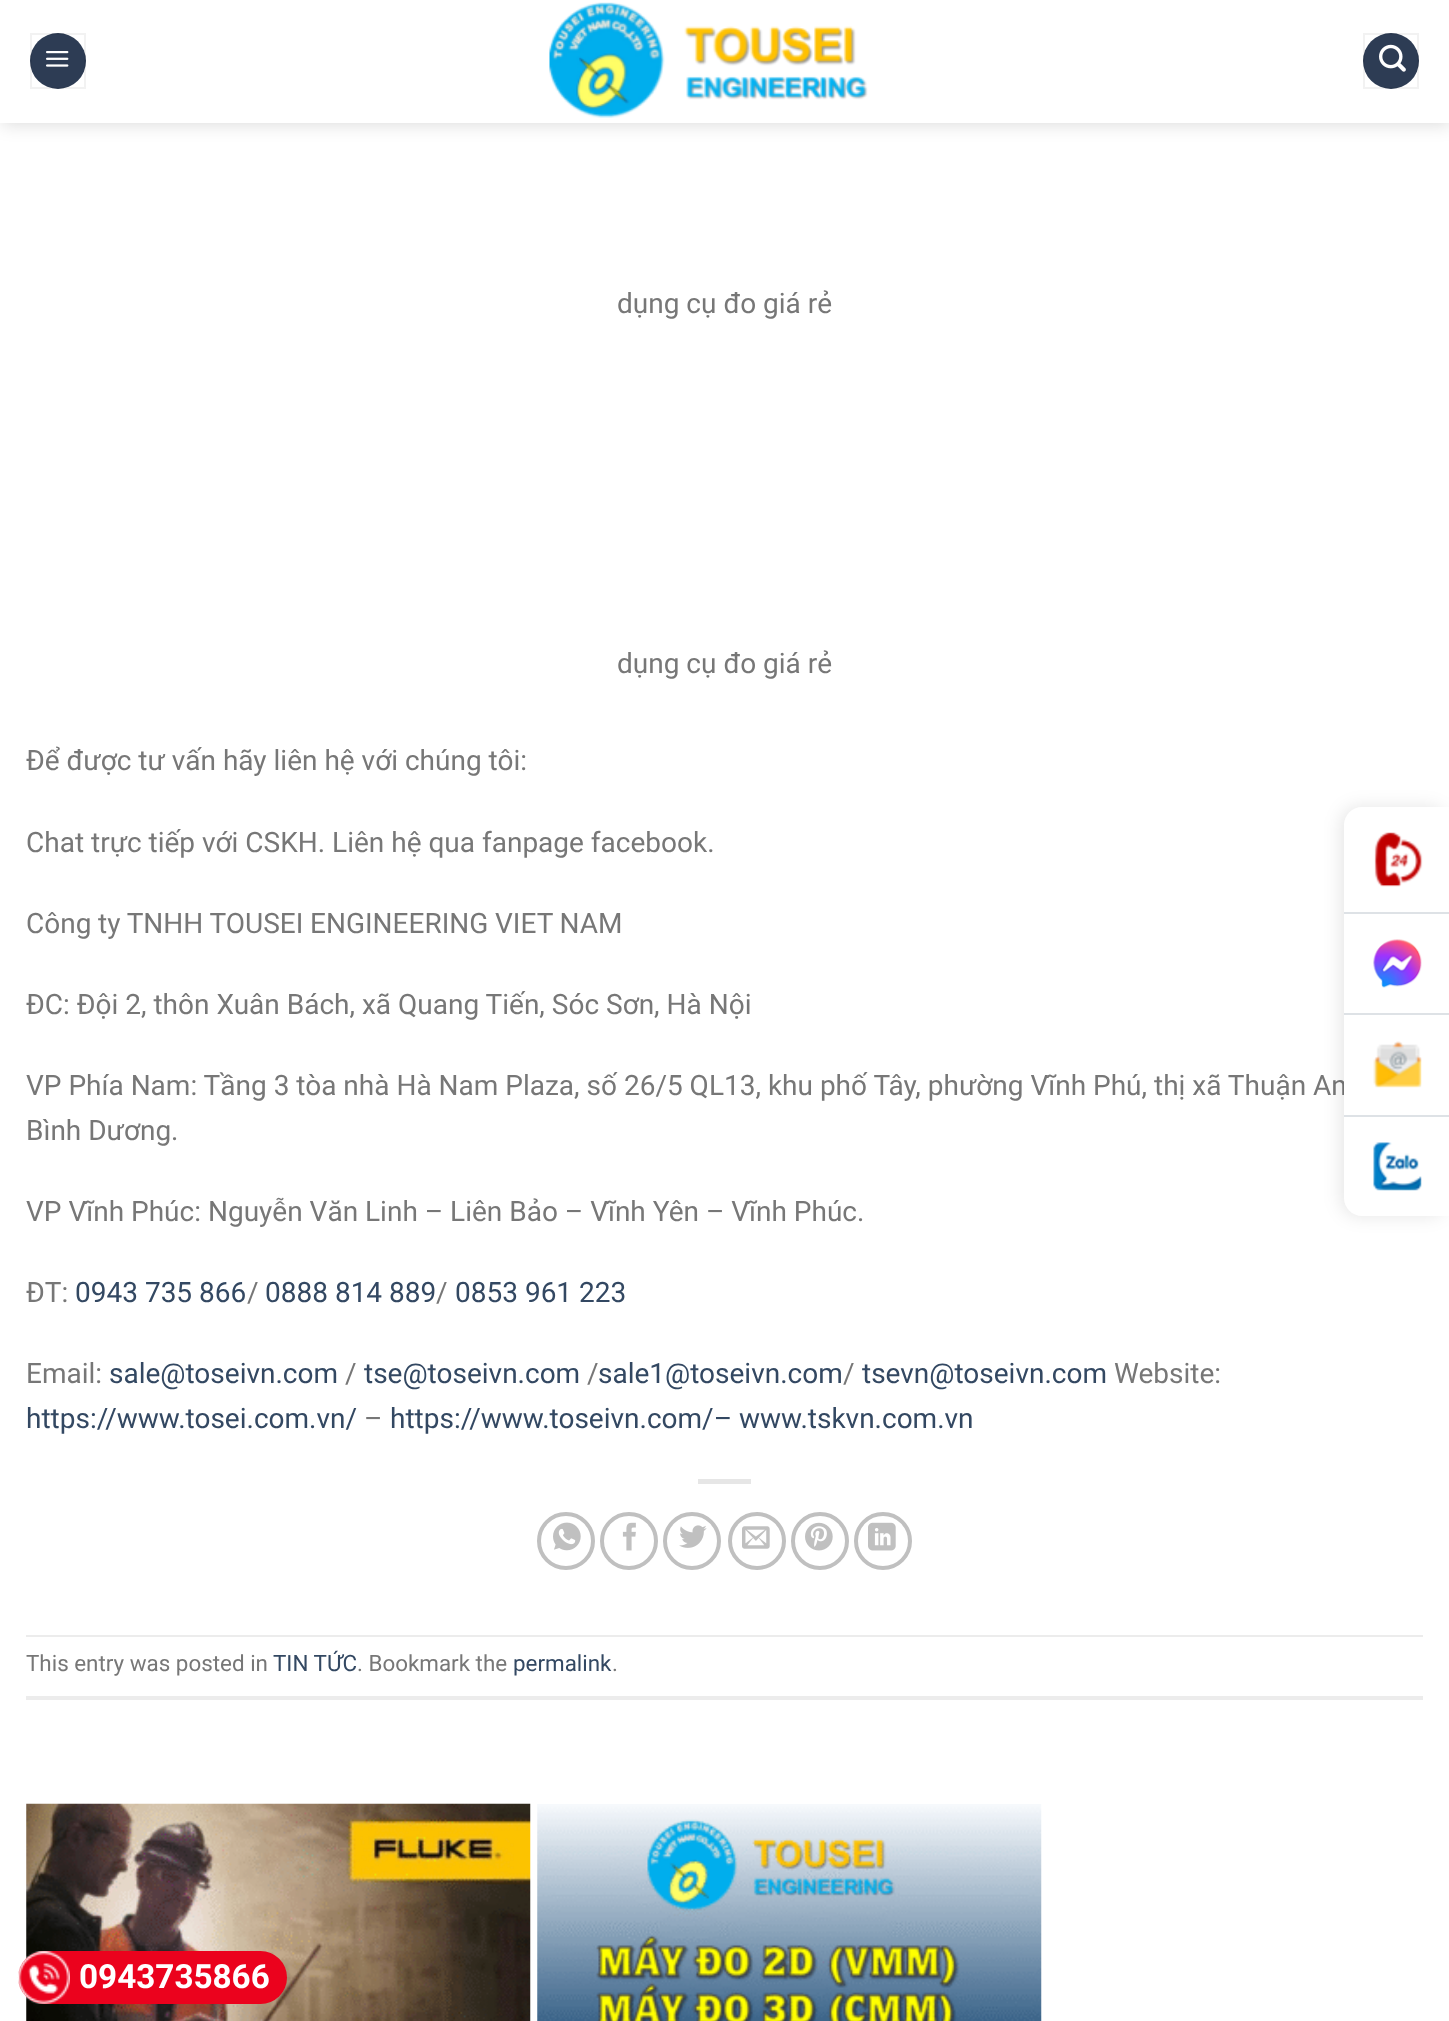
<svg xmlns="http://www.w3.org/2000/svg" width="1449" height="2021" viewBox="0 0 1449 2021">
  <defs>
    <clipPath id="clip1"><path d="M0 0H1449V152H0ZM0 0H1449V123H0Z" clip-rule="evenodd"/></clipPath>
    <filter id="blur1" x="-50%" y="-200%" width="200%" height="500%"><feGaussianBlur stdDeviation="9"/></filter>
  </defs>
  <rect width="100%" height="100%" fill="#ffffff"/>
  <g clip-path="url(#clip1)">
    <rect x="2" y="2" width="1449" height="122" fill="#000000" fill-opacity="0.15" filter="url(#blur1)"/>
  </g>
  <circle cx="58" cy="61" r="28" fill="#2d3c54"/>
  <rect x="31" y="34" width="54" height="54" fill="none" stroke="#000000" stroke-opacity="0.05" stroke-width="2"/>
  <image x="46" y="51" width="23" height="16" href="img1.png"/>
  <image x="549" y="2" width="319" height="116" href="img2.png"/>
  <circle cx="1391" cy="61" r="28" fill="#2d3c54"/>
  <rect x="1364" y="34" width="54" height="54" fill="none" stroke="#000000" stroke-opacity="0.05" stroke-width="2"/>
  <image x="1379" y="44" width="27" height="28" href="img3.png"/>
  <rect x="0" y="122" width="1449" height="1" fill="#ffffff" fill-opacity="0.9"/>
  <text x="617" y="313" font-family="Roboto" font-size="28" fill="#777777">dụng cụ đo giá rẻ</text>
  <text x="617" y="673" font-family="Roboto" font-size="28" fill="#777777">dụng cụ đo giá rẻ</text>
  <text x="26" y="770" font-family="Roboto" font-size="28" fill="#777777">Để được tư vấn hãy liên hệ với chúng tôi:</text>
  <text x="26" y="852" font-family="Roboto" font-size="28" fill="#777777">Chat trực tiếp với CSKH. Liên hệ qua fanpage facebook.</text>
  <text x="26" y="933" word-spacing="-0.25" font-family="Roboto" font-size="28" fill="#777777">Công ty TNHH TOUSEI ENGINEERING VIET NAM</text>
  <text x="26" y="1014" font-family="Roboto" font-size="28" fill="#777777">ĐC: Đội 2, thôn Xuân Bách, xã Quang Tiến, Sóc Sơn, Hà Nội</text>
  <text x="26" y="1095" font-family="Roboto" font-size="28" fill="#777777">VP Phía Nam: Tầng 3 tòa nhà Hà Nam Plaza, số 26/5 QL13, khu phố Tây, phường Vĩnh Phú, thị xã Thuận An</text>
  <text x="26" y="1140" font-family="Roboto" font-size="28" fill="#777777">Bình Dương.</text>
  <text x="26" y="1221" font-family="Roboto" font-size="28" fill="#777777">VP Vĩnh Phúc: Nguyễn Văn Linh – Liên Bảo – Vĩnh Yên – Vĩnh Phúc.</text>
  <text x="26" y="1302" font-family="Roboto" font-size="28" fill="#777777">ĐT:</text>
  <text x="75" y="1302" font-family="Roboto" font-size="28" fill="#334862">0943 735 866</text>
  <text x="247" y="1302" font-family="Roboto" font-size="28" fill="#777777">/</text>
  <text x="265" y="1302" font-family="Roboto" font-size="28" fill="#334862">0888 814 889</text>
  <text x="436" y="1302" font-family="Roboto" font-size="28" fill="#777777">/</text>
  <text x="455" y="1302" font-family="Roboto" font-size="28" fill="#334862">0853 961 223</text>
  <text x="26" y="1383" font-family="Roboto" font-size="28" fill="#777777">Email:</text>
  <text x="109" y="1383" font-family="Roboto" font-size="28" fill="#334862">sale@toseivn.com</text>
  <text x="345" y="1383" font-family="Roboto" font-size="28" fill="#777777">/</text>
  <text x="364" y="1383" font-family="Roboto" font-size="28" fill="#334862">tse@toseivn.com</text>
  <text x="587" y="1383" font-family="Roboto" font-size="28" fill="#777777">/</text>
  <text x="598" y="1383" font-family="Roboto" font-size="28" fill="#334862">sale1@toseivn.com</text>
  <text x="843" y="1383" font-family="Roboto" font-size="28" fill="#777777">/</text>
  <text x="862" y="1383" font-family="Roboto" font-size="28" fill="#334862">tsevn@toseivn.com</text>
  <text x="1114" y="1383" font-family="Roboto" font-size="28" fill="#777777">Website:</text>
  <text x="26" y="1428" font-family="Roboto" font-size="28" fill="#334862">https://www.tosei.com.vn/</text>
  <text x="364" y="1428" font-family="Roboto" font-size="28" fill="#777777">–</text>
  <text x="390" y="1428" font-family="Roboto" font-size="28" fill="#334862">https://www.toseivn.com/– www.tskvn.com.vn</text>
  <rect x="698" y="1479" width="53" height="5" fill="#e6e6e6"/>
  <circle cx="566" cy="1541" r="27" fill="none" stroke="#c0c0c0" stroke-width="4"/>
  <image x="553" y="1522" width="28" height="29" href="img4.png"/>
  <circle cx="629" cy="1541" r="27" fill="none" stroke="#c0c0c0" stroke-width="4"/>
  <image x="622" y="1522" width="14" height="29" href="img5.png"/>
  <circle cx="692" cy="1541" r="27" fill="none" stroke="#c0c0c0" stroke-width="4"/>
  <image x="679" y="1525" width="28" height="23" href="img6.png"/>
  <circle cx="757" cy="1541" r="27" fill="none" stroke="#c0c0c0" stroke-width="4"/>
  <image x="742" y="1526" width="28" height="23" href="img7.png"/>
  <circle cx="820" cy="1541" r="27" fill="none" stroke="#c0c0c0" stroke-width="4"/>
  <image x="805" y="1522" width="28" height="29" href="img8.png"/>
  <circle cx="883" cy="1541" r="27" fill="none" stroke="#c0c0c0" stroke-width="4"/>
  <image x="868" y="1522" width="28" height="29" href="img9.png"/>
  <rect x="26" y="1635" width="1397" height="2" fill="#ececec"/>
  <rect x="26" y="1696" width="1397" height="4" fill="#ececec"/>
  <text x="26" y="1671" font-family="Roboto" font-size="22.4" fill="#777777">This entry was posted in</text>
  <text x="273" y="1671" font-family="Roboto" font-size="22.4" fill="#334862">TIN TỨC</text>
  <text x="357" y="1671" font-family="Roboto" font-size="22.4" fill="#777777">. Bookmark the</text>
  <text x="513" y="1671" font-family="Roboto" font-size="22.4" fill="#334862">permalink</text>
  <text x="612" y="1671" font-family="Roboto" font-size="22.4" fill="#777777">.</text>
  <image x="26" y="1803" width="505" height="218" href="img10.png"/>
  <image x="537" y="1804" width="505" height="217" href="img11.png"/>
  <rect x="1341" y="807" width="105" height="409" rx="18" fill="#000000" fill-opacity="0.1" filter="url(#blur1)"/>
  <path d="M1362 807H1449V1216H1362C1352 1216 1344 1208 1344 1198V825C1344 815 1352 807 1362 807Z" fill="#ffffff"/>
  <rect x="1344" y="912" width="105" height="2" fill="#dee2e6"/>
  <image x="1374" y="832" width="49" height="55" href="img12.png"/>
  <rect x="1344" y="1013" width="105" height="2" fill="#dee2e6"/>
  <image x="1373" y="939" width="49" height="49" href="img13.png"/>
  <rect x="1344" y="1115" width="105" height="2" fill="#dee2e6"/>
  <image x="1373" y="1041" width="49" height="47" href="img14.png"/>
  <image x="1373" y="1142" width="49" height="49" href="img15.png"/>
  <rect x="18" y="1951" width="269" height="53" rx="26.5" fill="#eb021d"/>
  <image x="18" y="1951" width="52" height="53" href="img16.png"/>
  <text x="79" y="1988" font-family="Roboto" font-size="33.25" font-weight="bold" fill="#ffffff">0943735866</text>
</svg>
